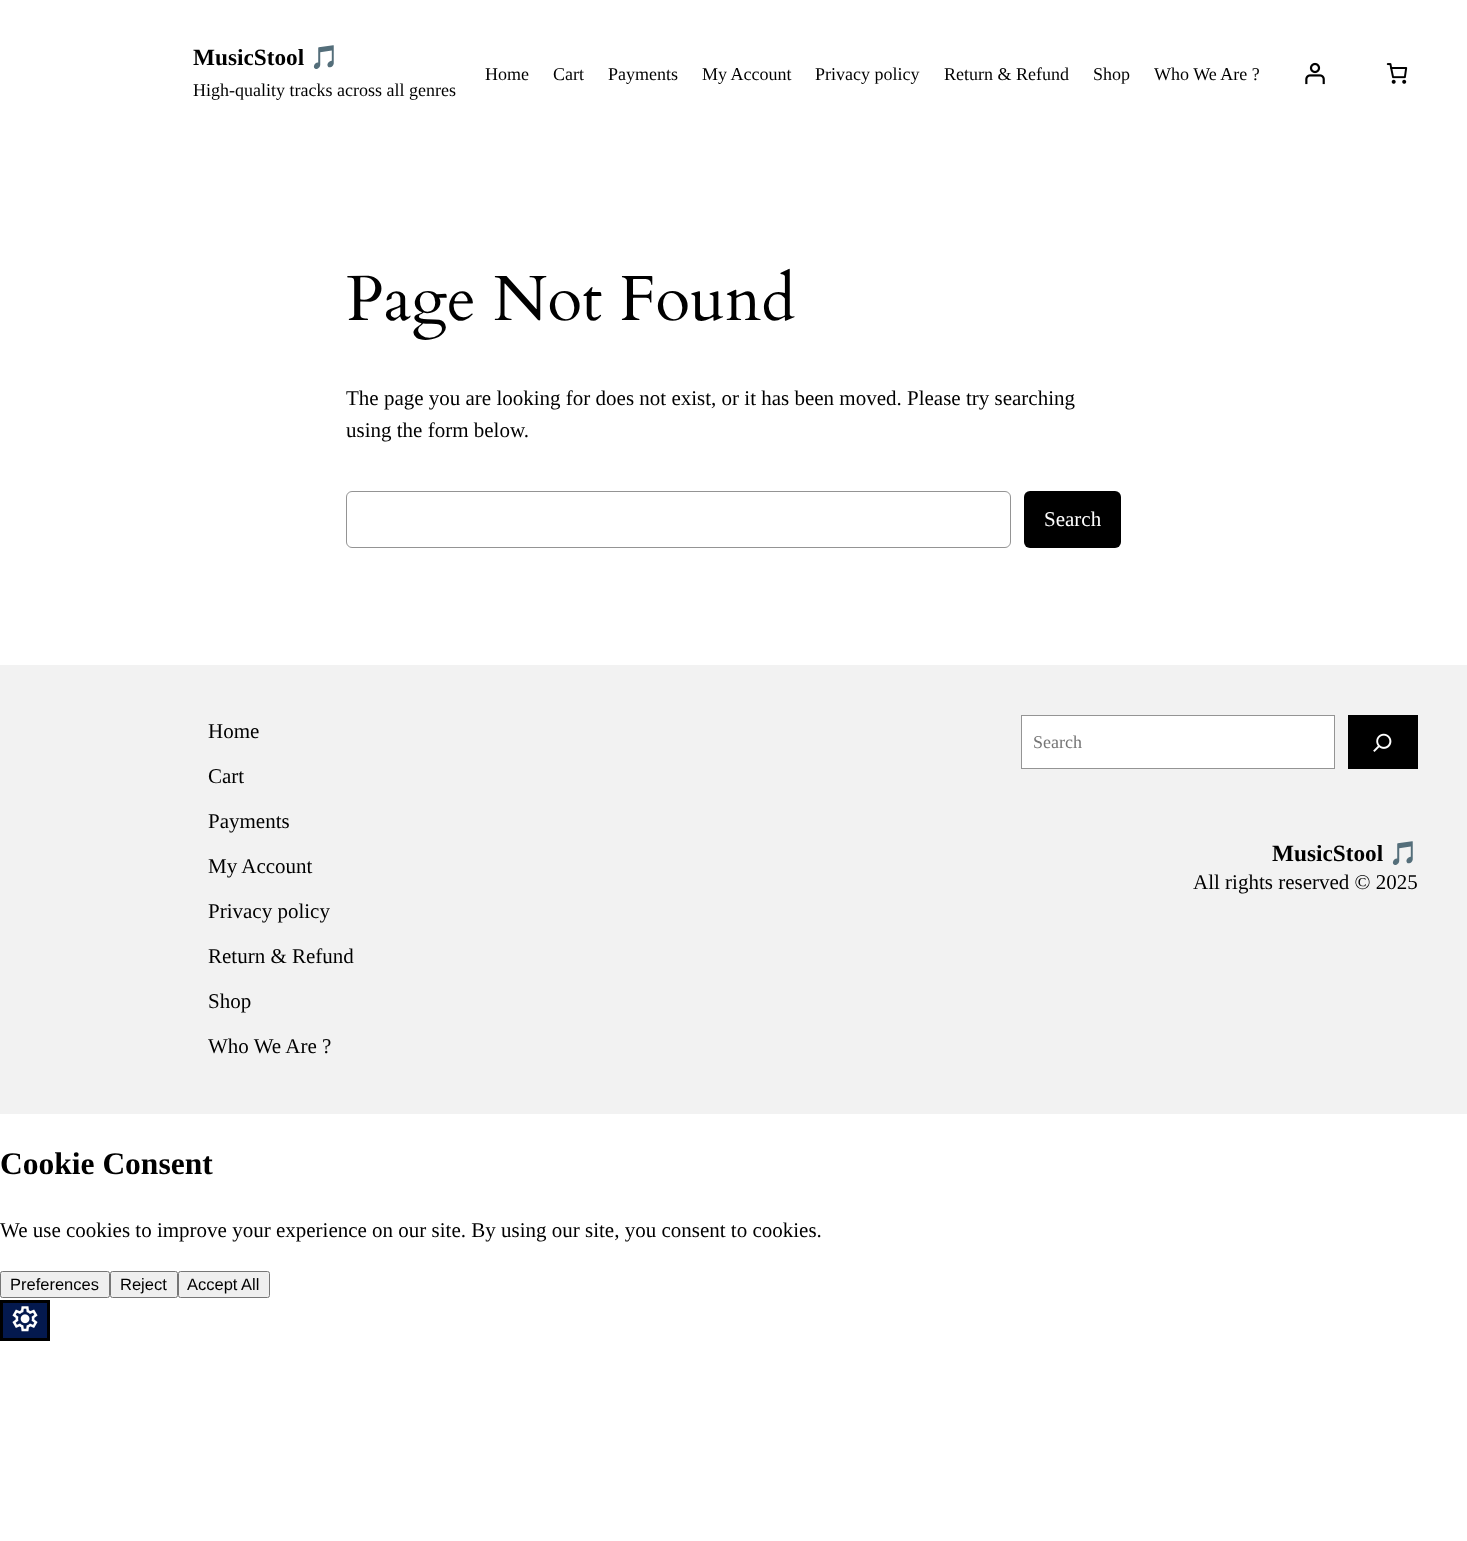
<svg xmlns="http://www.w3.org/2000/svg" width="1467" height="1541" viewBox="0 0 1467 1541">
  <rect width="100%" height="100%" fill="#ffffff"/>
  <text x="193" y="65" font-family="Liberation Serif" font-size="23.25" font-weight="bold" fill="#000000">MusicStool</text>
  <text x="310" y="65" font-family="Noto Color Emoji" font-size="23.25" font-weight="bold" fill="#000000">🎵</text>
  <text x="193" y="96" font-family="Liberation Serif" font-size="18" fill="#000000">High-quality tracks across all genres</text>
  <text x="485" y="80" font-family="Liberation Serif" font-size="18" fill="#000000">Home</text>
  <text x="553" y="80" font-family="Liberation Serif" font-size="18" fill="#000000">Cart</text>
  <text x="608" y="80" font-family="Liberation Serif" font-size="18" fill="#000000">Payments</text>
  <text x="702" y="80" font-family="Liberation Serif" font-size="18" fill="#000000">My Account</text>
  <text x="815" y="80" font-family="Liberation Serif" font-size="18" fill="#000000">Privacy policy</text>
  <text x="944" y="80" font-family="Liberation Serif" font-size="18" fill="#000000">Return &amp; Refund</text>
  <text x="1093" y="80" font-family="Liberation Serif" font-size="18" fill="#000000">Shop</text>
  <text x="1154" y="80" font-family="Liberation Serif" font-size="18" fill="#000000">Who We Are ?</text>
  <image x="1305" y="62" width="20" height="23" href="img1.png"/>
  <image x="1386" y="63" width="22" height="21" href="img2.png"/>
  <text x="346" y="320" font-family="Cardo" font-size="63.75" fill="#000000">Page Not Found</text>
  <text x="346" y="405" font-family="Liberation Serif" font-size="21" fill="#000000">The page you are looking for does not exist, or it has been moved. Please try searching</text>
  <text x="346" y="437" font-family="Liberation Serif" font-size="21" fill="#000000">using the form below.</text>
  <rect x="346.5" y="491.5" width="664" height="56" rx="5.5" fill="none" stroke="#949494"/>
  <rect x="1024" y="491" width="97" height="57" rx="6" fill="#000000"/>
  <text x="1044" y="526" font-family="Liberation Serif" font-size="21" fill="#ffffff">Search</text>
  <rect x="0" y="665" width="1467" height="449" fill="#f2f2f2"/>
  <text x="208" y="738" font-family="Liberation Serif" font-size="21" fill="#000000">Home</text>
  <text x="208" y="783" font-family="Liberation Serif" font-size="21" fill="#000000">Cart</text>
  <text x="208" y="828" font-family="Liberation Serif" font-size="21" fill="#000000">Payments</text>
  <text x="208" y="873" font-family="Liberation Serif" font-size="21" fill="#000000">My Account</text>
  <text x="208" y="918" font-family="Liberation Serif" font-size="21" fill="#000000">Privacy policy</text>
  <text x="208" y="963" font-family="Liberation Serif" font-size="21" fill="#000000">Return &amp; Refund</text>
  <text x="208" y="1008" font-family="Liberation Serif" font-size="21" fill="#000000">Shop</text>
  <text x="208" y="1053" font-family="Liberation Serif" font-size="21" fill="#000000">Who We Are ?</text>
  <rect x="1021.5" y="715.5" width="313" height="53" fill="#ffffff" stroke="#949494"/>
  <text x="1033" y="748" font-family="Liberation Serif" font-size="18" fill="#757575">Search</text>
  <rect x="1348" y="715" width="70" height="54" fill="#000000"/>
  <image x="1373" y="733" width="19" height="19" href="img3.png"/>
  <text x="1272" y="861" font-family="Liberation Serif" font-size="23.25" font-weight="bold" fill="#000000">MusicStool</text>
  <text x="1389" y="861" font-family="Noto Color Emoji" font-size="23.25" font-weight="bold" fill="#000000">🎵</text>
  <text x="1193" y="889" font-family="Liberation Serif" font-size="21" fill="#000000">All rights reserved © 2025</text>
  <text x="0" y="1174" font-family="Liberation Serif" font-size="31.5" font-weight="bold" fill="#000000">Cookie Consent</text>
  <text x="0" y="1237" font-family="Liberation Serif" font-size="21" fill="#000000">We use cookies to improve your experience on our site. By using our site, you consent to cookies.</text>
  <rect x="0.5" y="1271.5" width="109" height="26" rx="2" fill="#efefef" stroke="#767676"/>
  <text x="10" y="1290" font-family="Liberation Sans" font-size="16.5" fill="#000000">Preferences</text>
  <rect x="110.5" y="1271.5" width="67" height="26" rx="2" fill="#efefef" stroke="#767676"/>
  <text x="120" y="1290" font-family="Liberation Sans" font-size="16.5" fill="#000000">Reject</text>
  <rect x="178.5" y="1271.5" width="91" height="26" rx="2" fill="#efefef" stroke="#767676"/>
  <text x="187" y="1290" font-family="Liberation Sans" font-size="16.5" fill="#000000">Accept All</text>
  <rect x="1.5" y="1301.5" width="47" height="38" fill="#04194e" stroke="#000000" stroke-width="3"/>
  <image x="12" y="1306" width="26" height="26" href="img4.png"/>
</svg>
